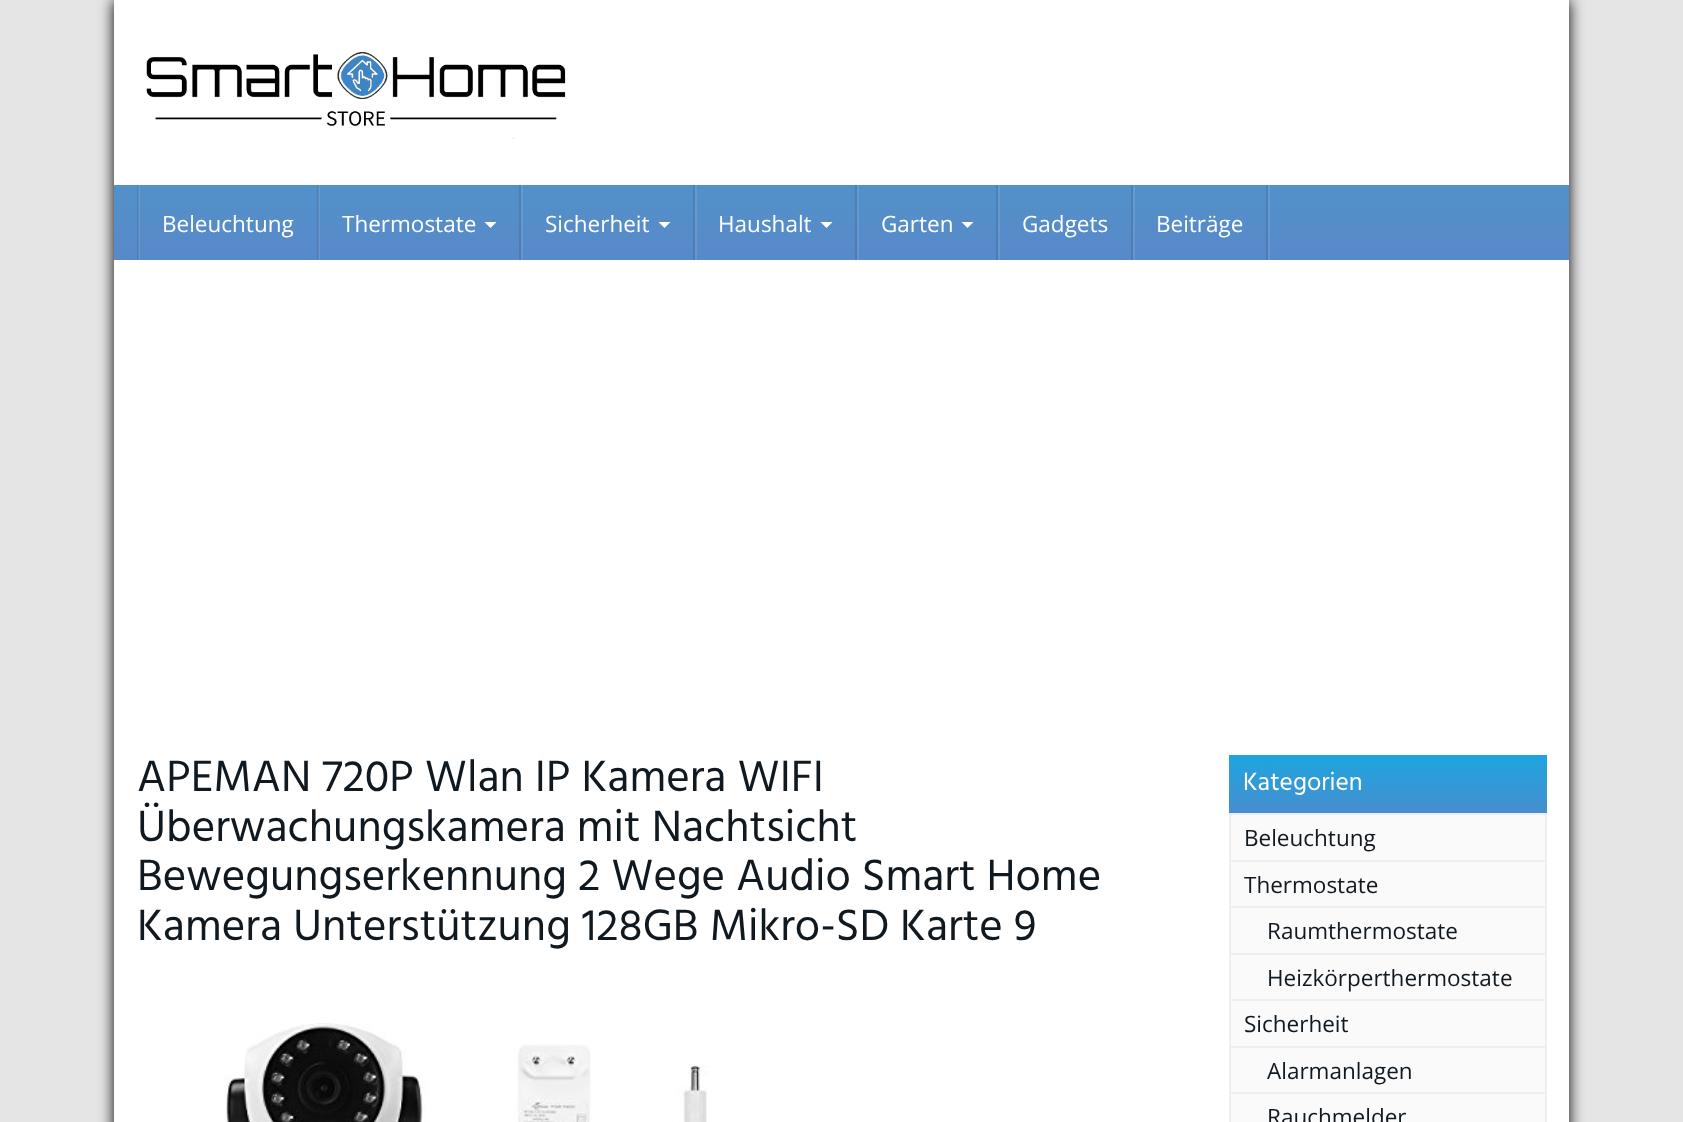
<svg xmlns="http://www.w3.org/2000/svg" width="1683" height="1122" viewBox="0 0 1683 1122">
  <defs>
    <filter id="blur1" x="-50%" y="-200%" width="200%" height="500%"><feGaussianBlur stdDeviation="7.5"/></filter>
    <linearGradient id="g1" gradientUnits="userSpaceOnUse" x1="842" y1="184" x2="842" y2="260"><stop offset="0" stop-color="#5291c9"/><stop offset="1" stop-color="#5889c9"/></linearGradient>
    <linearGradient id="g2" gradientUnits="userSpaceOnUse" x1="842" y1="184" x2="842" y2="260"><stop offset="0" stop-color="#639cce"/><stop offset="1" stop-color="#6995ce"/></linearGradient>
    <linearGradient id="g3" gradientUnits="userSpaceOnUse" x1="842" y1="184" x2="842" y2="260"><stop offset="0" stop-color="#4a83b5"/><stop offset="1" stop-color="#4f7bb5"/></linearGradient>
    <linearGradient id="g4" gradientUnits="userSpaceOnUse" x1="842" y1="184" x2="842" y2="260"><stop offset="0" stop-color="#5c8fbc"/><stop offset="1" stop-color="#6188bc"/></linearGradient>
    <linearGradient id="g5" gradientUnits="userSpaceOnUse" x1="1388" y1="755" x2="1388" y2="813"><stop offset="0" stop-color="#1da5e0"/><stop offset="1" stop-color="#468ece"/></linearGradient>
  </defs>
  <rect width="100%" height="100%" fill="#e5e5e5"/>
  <rect x="114" y="0" width="1455" height="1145" fill="#000000" filter="url(#blur1)"/>
  <rect x="114" y="0" width="1455" height="1122" fill="#ffffff"/>
  <image x="146" y="51" width="420" height="88" href="img1.png"/>
  <rect x="114" y="185" width="1455" height="75" fill="url(#g1)"/>
  <rect x="1133" y="185" width="2" height="75" fill="url(#g2)"/>
  <rect x="1266" y="185" width="2" height="75" fill="url(#g3)"/>
  <rect x="998" y="185" width="2" height="75" fill="url(#g2)"/>
  <rect x="1131" y="185" width="2" height="75" fill="url(#g3)"/>
  <rect x="857" y="185" width="2" height="75" fill="url(#g2)"/>
  <rect x="996" y="185" width="2" height="75" fill="url(#g3)"/>
  <rect x="695" y="185" width="2" height="75" fill="url(#g2)"/>
  <rect x="855" y="185" width="2" height="75" fill="url(#g3)"/>
  <rect x="521" y="185" width="2" height="75" fill="url(#g2)"/>
  <rect x="693" y="185" width="2" height="75" fill="url(#g3)"/>
  <rect x="319" y="185" width="1" height="75" fill="url(#g2)"/>
  <rect x="519" y="185" width="2" height="75" fill="url(#g3)"/>
  <rect x="139" y="185" width="1" height="75" fill="url(#g2)"/>
  <rect x="317" y="185" width="1" height="75" fill="url(#g3)"/>
  <rect x="318" y="185" width="1" height="75" fill="url(#g4)"/>
  <rect x="137" y="185" width="1" height="75" fill="url(#g3)"/>
  <rect x="138" y="185" width="1" height="75" fill="url(#g4)"/>
  <rect x="1268" y="185" width="2" height="75" fill="url(#g2)"/>
  <text x="162" y="232" font-family="Open Sans" font-size="22.5" fill="#ffffff">Beleuchtung</text>
  <text x="342" y="232" font-family="Open Sans" font-size="22.5" fill="#ffffff">Thermostate</text>
  <path d="M484.5 222H496.5L490.5 228Z" fill="#ffffff"/>
  <text x="545" y="232" font-family="Open Sans" font-size="22.5" fill="#ffffff">Sicherheit</text>
  <path d="M658.5 222H670.5L664.5 228Z" fill="#ffffff"/>
  <text x="718" y="232" font-family="Open Sans" font-size="22.5" fill="#ffffff">Haushalt</text>
  <path d="M820.5 222H832.5L826.5 228Z" fill="#ffffff"/>
  <text x="881" y="232" font-family="Open Sans" font-size="22.5" fill="#ffffff">Garten</text>
  <path d="M961.5 222H973.5L967.5 228Z" fill="#ffffff"/>
  <text x="1022" y="232" font-family="Open Sans" font-size="22.5" fill="#ffffff">Gadgets</text>
  <text x="1156" y="232" font-family="Open Sans" font-size="22.5" fill="#ffffff">Beiträge</text>
  <text x="137" y="791" font-family="Hind" font-size="45" fill="#101820">APEMAN 720P Wlan IP Kamera WIFI</text>
  <text x="137" y="841" font-family="Hind" font-size="45" fill="#101820">Überwachungskamera mit Nachtsicht</text>
  <text x="137" y="890" font-family="Hind" font-size="45" fill="#101820">Bewegungserkennung 2 Wege Audio Smart Home</text>
  <text x="137" y="940" font-family="Hind" font-size="45" fill="#101820">Kamera Unterstützung 128GB Mikro-SD Karte 9</text>
  <image x="223" y="1023" width="486" height="99" href="img2.png"/>
  <rect x="1231" y="815" width="314" height="307" fill="#fafafa"/>
  <rect x="1230" y="756" width="316" height="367" fill="none" stroke="#eeeeee" stroke-width="2"/>
  <rect x="1229" y="755" width="318" height="58" fill="url(#g5)"/>
  <text x="1243" y="790" font-family="Hind" font-size="25.5" fill="#ffffff">Kategorien</text>
  <rect x="1230" y="813" width="315" height="2" fill="#eeeeee"/>
  <text x="1244" y="846" font-family="Open Sans" font-size="22.5" fill="#101820">Beleuchtung</text>
  <rect x="1230" y="860" width="315" height="2" fill="#eeeeee"/>
  <text x="1244" y="893" font-family="Open Sans" font-size="22.5" fill="#101820">Thermostate</text>
  <rect x="1230" y="906" width="315" height="2" fill="#eeeeee"/>
  <text x="1267" y="939" font-family="Open Sans" font-size="22.5" fill="#101820">Raumthermostate</text>
  <rect x="1230" y="953" width="315" height="2" fill="#eeeeee"/>
  <text x="1267" y="986" font-family="Open Sans" font-size="22.5" fill="#101820">Heizkörperthermostate</text>
  <rect x="1230" y="999" width="315" height="2" fill="#eeeeee"/>
  <text x="1244" y="1032" font-family="Open Sans" font-size="22.5" fill="#101820">Sicherheit</text>
  <rect x="1230" y="1046" width="315" height="2" fill="#eeeeee"/>
  <text x="1267" y="1079" font-family="Open Sans" font-size="22.5" fill="#101820">Alarmanlagen</text>
  <rect x="1230" y="1092" width="315" height="2" fill="#eeeeee"/>
  <text x="1267" y="1125" font-family="Open Sans" font-size="22.5" fill="#101820">Rauchmelder</text>
</svg>
